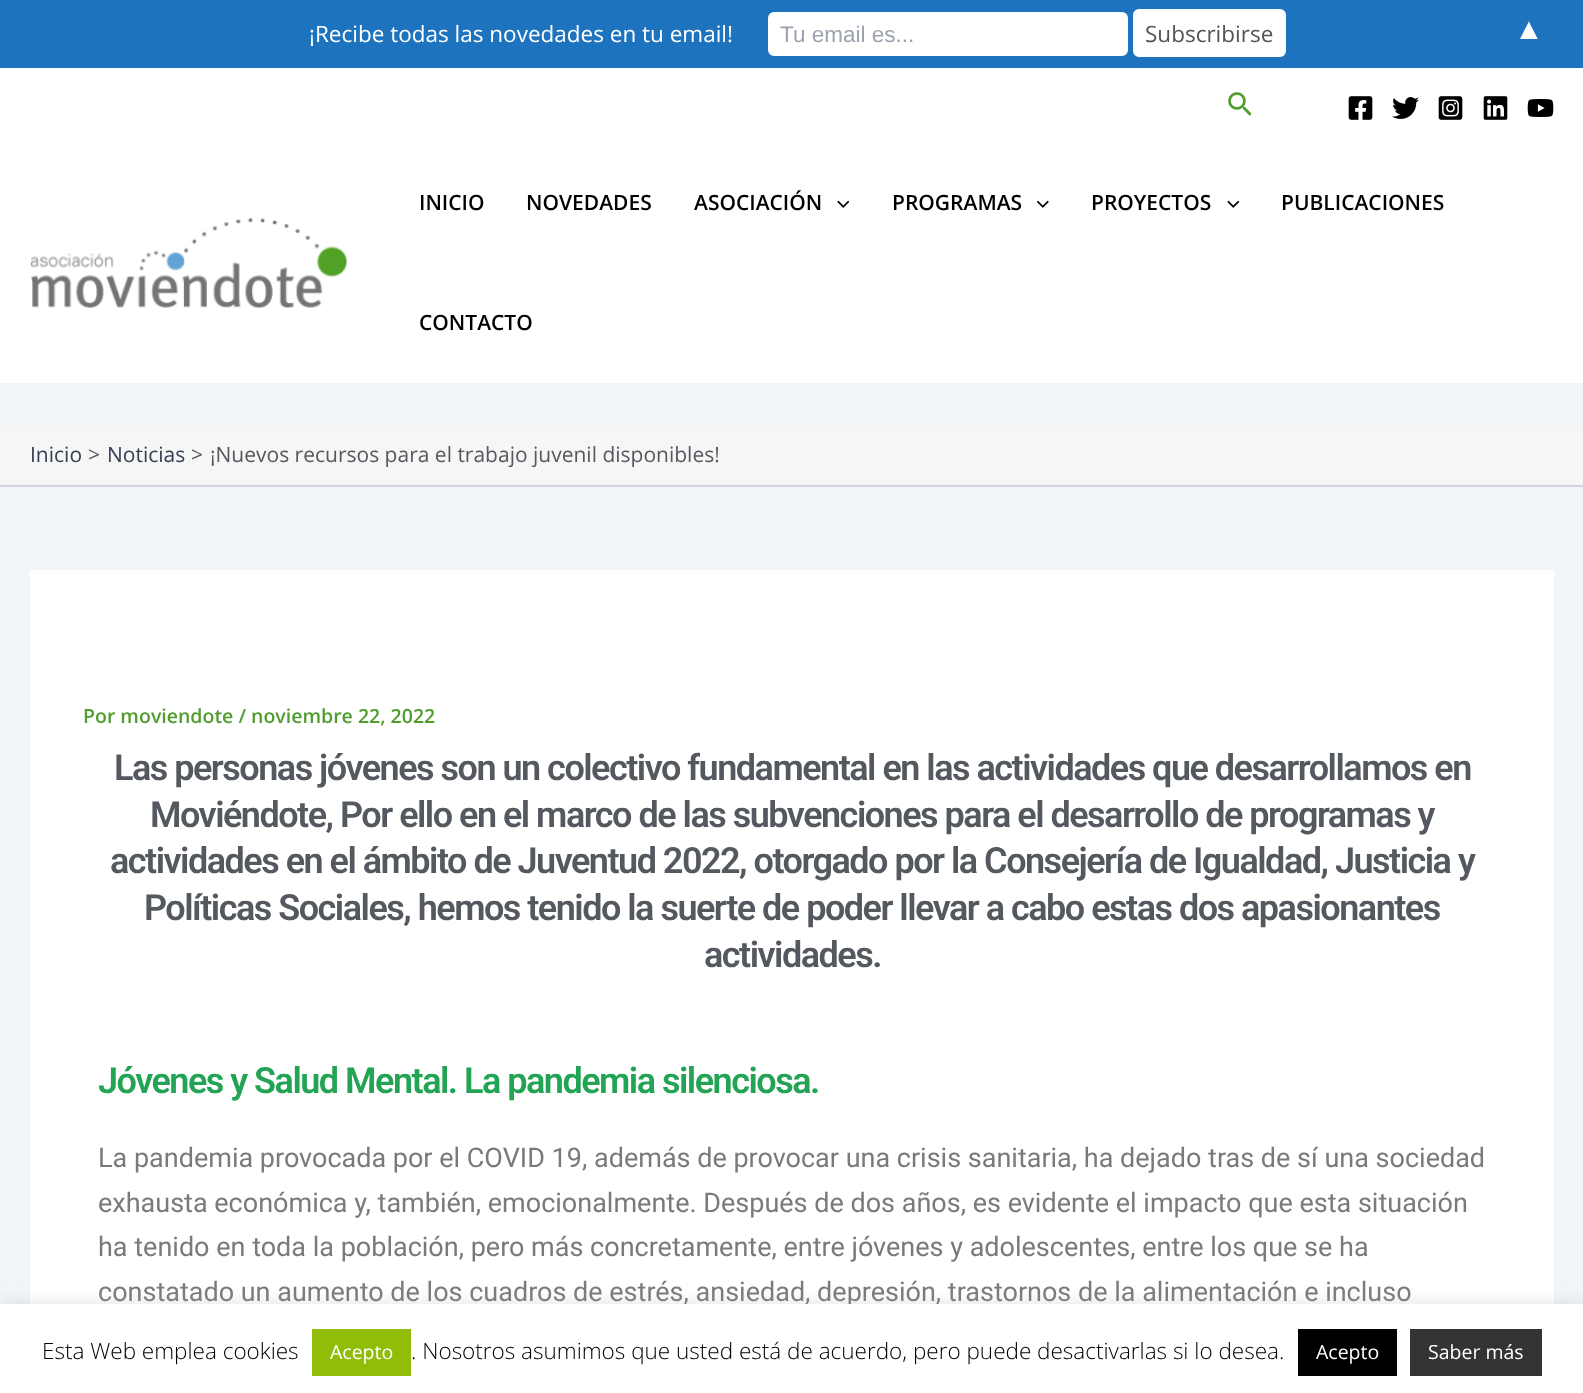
<svg xmlns="http://www.w3.org/2000/svg" width="1583" height="1393" viewBox="0 0 1583 1393">
  <defs>
    <filter id="blur1" x="-50%" y="-200%" width="200%" height="500%"><feGaussianBlur stdDeviation="7.5"/></filter>
  </defs>
  <rect width="100%" height="100%" fill="#f0f5fa"/>
  <rect x="0" y="0" width="1583" height="68" fill="#1e73be"/>
  <text x="309" y="42" font-family="Open Sans" font-size="22.5" fill="#ffffff">¡Recibe todas las novedades en tu email!</text>
  <rect x="769" y="13" width="358" height="42" rx="5" fill="#ffffff" stroke="#ffffff" stroke-width="2"/>
  <text x="780" y="42" font-family="Liberation Sans" font-size="22.5" fill="#9ca3af">Tu email es...</text>
  <rect x="1134" y="10" width="151" height="46" rx="5" fill="#ffffff" stroke="#ffffff" stroke-width="2"/>
  <text x="1145" y="42" font-family="Open Sans" font-size="22.5" fill="#545454">Subscribirse</text>
  <text x="1514" y="39" font-family="Liberation Serif" font-size="30" fill="#ffffff">▲</text>
  <rect x="0" y="68" width="1583" height="315" fill="#ffffff"/>
  <image x="1228" y="92" width="23" height="24" href="img1.png"/>
  <image x="1348" y="96" width="25" height="24" href="img2.png"/>
  <image x="1392" y="97" width="27" height="22" href="img3.png"/>
  <image x="1438" y="96" width="25" height="24" href="img4.png"/>
  <image x="1483" y="96" width="25" height="24" href="img5.png"/>
  <image x="1527" y="99" width="27" height="18" href="img6.png"/>
  <image x="30" y="217" width="317" height="91" href="img7.png"/>
  <text x="419" y="210" font-family="Open Sans" font-size="21" font-weight="600" fill="#000000">INICIO</text>
  <text x="526" y="210" font-family="Open Sans" font-size="21" font-weight="600" fill="#000000">NOVEDADES</text>
  <text x="694" y="210" font-family="Open Sans" font-size="21" font-weight="600" fill="#000000">ASOCIACIÓN</text>
  <image x="837" y="200" width="12" height="8" href="img8.png"/>
  <text x="892" y="210" font-family="Open Sans" font-size="21" font-weight="600" fill="#000000">PROGRAMAS</text>
  <image x="1037" y="200" width="12" height="8" href="img9.png"/>
  <text x="1091" y="210" font-family="Open Sans" font-size="21" font-weight="600" fill="#000000">PROYECTOS</text>
  <image x="1227" y="200" width="12" height="8" href="img8.png"/>
  <text x="1281" y="210" font-family="Open Sans" font-size="21" font-weight="600" fill="#000000">PUBLICACIONES</text>
  <text x="419" y="330" font-family="Open Sans" font-size="21" font-weight="600" fill="#000000">CONTACTO</text>
  <rect x="0" y="425" width="1583" height="60" fill="#f6f6f6"/>
  <rect x="0" y="485" width="1583" height="2" fill="#d1d5db"/>
  <text x="30" y="462" font-family="Open Sans" font-size="21" fill="#334155">Inicio</text>
  <text x="88" y="462" font-family="Open Sans" font-size="21" fill="#54595f">&gt;</text>
  <text x="107" y="462" font-family="Open Sans" font-size="21" fill="#334155">Noticias</text>
  <text x="191" y="462" font-family="Open Sans" font-size="21" fill="#54595f">&gt;</text>
  <text x="210" y="462" font-family="Open Sans" font-size="21" fill="#54595f">¡Nuevos recursos para el trabajo juvenil disponibles!</text>
  <rect x="30" y="570" width="1524" height="734" fill="#ffffff"/>
  <text x="83" y="723" font-family="Open Sans" font-size="19.5" font-weight="600" fill="#4f9d2d">Por moviendote / noviembre 22, 2022</text>
  <text x="114" y="780" font-family="Roboto" font-size="36" font-weight="600" letter-spacing="-1.5" fill="#54595f">Las personas jóvenes son un colectivo fundamental en las actividades que desarrollamos en</text>
  <text x="150" y="827" font-family="Roboto" font-size="36" font-weight="600" letter-spacing="-1.5" fill="#54595f">Moviéndote, Por ello en el marco de las subvenciones para el desarrollo de programas y</text>
  <text x="110" y="873" font-family="Roboto" font-size="36" font-weight="600" letter-spacing="-1.5" fill="#54595f">actividades en el ámbito de Juventud 2022, otorgado por la Consejería de Igualdad, Justicia y</text>
  <text x="144" y="920" font-family="Roboto" font-size="36" font-weight="600" letter-spacing="-1.5" fill="#54595f">Políticas Sociales, hemos tenido la suerte de poder llevar a cabo estas dos apasionantes</text>
  <text x="704" y="967" font-family="Roboto" font-size="36" font-weight="600" letter-spacing="-1.5" fill="#54595f">actividades.</text>
  <text x="98" y="1093" font-family="Roboto" font-size="36" font-weight="600" letter-spacing="-1.5" fill="#23a455">Jóvenes y Salud Mental. La pandemia silenciosa.</text>
  <text x="98" y="1167" font-family="Roboto" font-size="27" fill="#7a7a7a">La pandemia provocada por el COVID 19, además de provocar una crisis sanitaria, ha dejado tras de sí una sociedad</text>
  <text x="98" y="1212" font-family="Roboto" font-size="27" fill="#7a7a7a">exhausta económica y, también, emocionalmente. Después de dos años, es evidente el impacto que esta situación</text>
  <text x="98" y="1256" font-family="Roboto" font-size="27" fill="#7a7a7a">ha tenido en toda la población, pero más concretamente, entre jóvenes y adolescentes, entre los que se ha</text>
  <text x="98" y="1301" font-family="Roboto" font-size="27" fill="#7a7a7a">constatado un aumento de los cuadros de estrés, ansiedad, depresión, trastornos de la alimentación e incluso</text>
  <rect x="0" y="1302" width="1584" height="90" fill="#acabab" fill-opacity="0.3" filter="url(#blur1)"/>
  <rect x="0" y="1304" width="1583" height="89" fill="#ffffff"/>
  <text x="42" y="1359" font-family="Open Sans" font-size="22.5" font-weight="300" fill="#000000">Esta Web emplea cookies</text>
  <rect x="312" y="1329" width="99" height="47" fill="#91bd09"/>
  <text x="330" y="1359" font-family="Open Sans" font-size="19.5" fill="#ffffff">Acepto</text>
  <text x="411" y="1359" font-family="Open Sans" font-size="22.5" font-weight="300" fill="#000000">. Nosotros asumimos que usted está de acuerdo, pero puede desactivarlas si lo desea.</text>
  <rect x="1298" y="1329" width="99" height="47" fill="#000000"/>
  <text x="1316" y="1359" font-family="Open Sans" font-size="19.5" fill="#ffffff">Acepto</text>
  <rect x="1410" y="1329" width="132" height="47" fill="#333333"/>
  <text x="1428" y="1359" font-family="Open Sans" font-size="19.5" fill="#ffffff">Saber más</text>
</svg>
